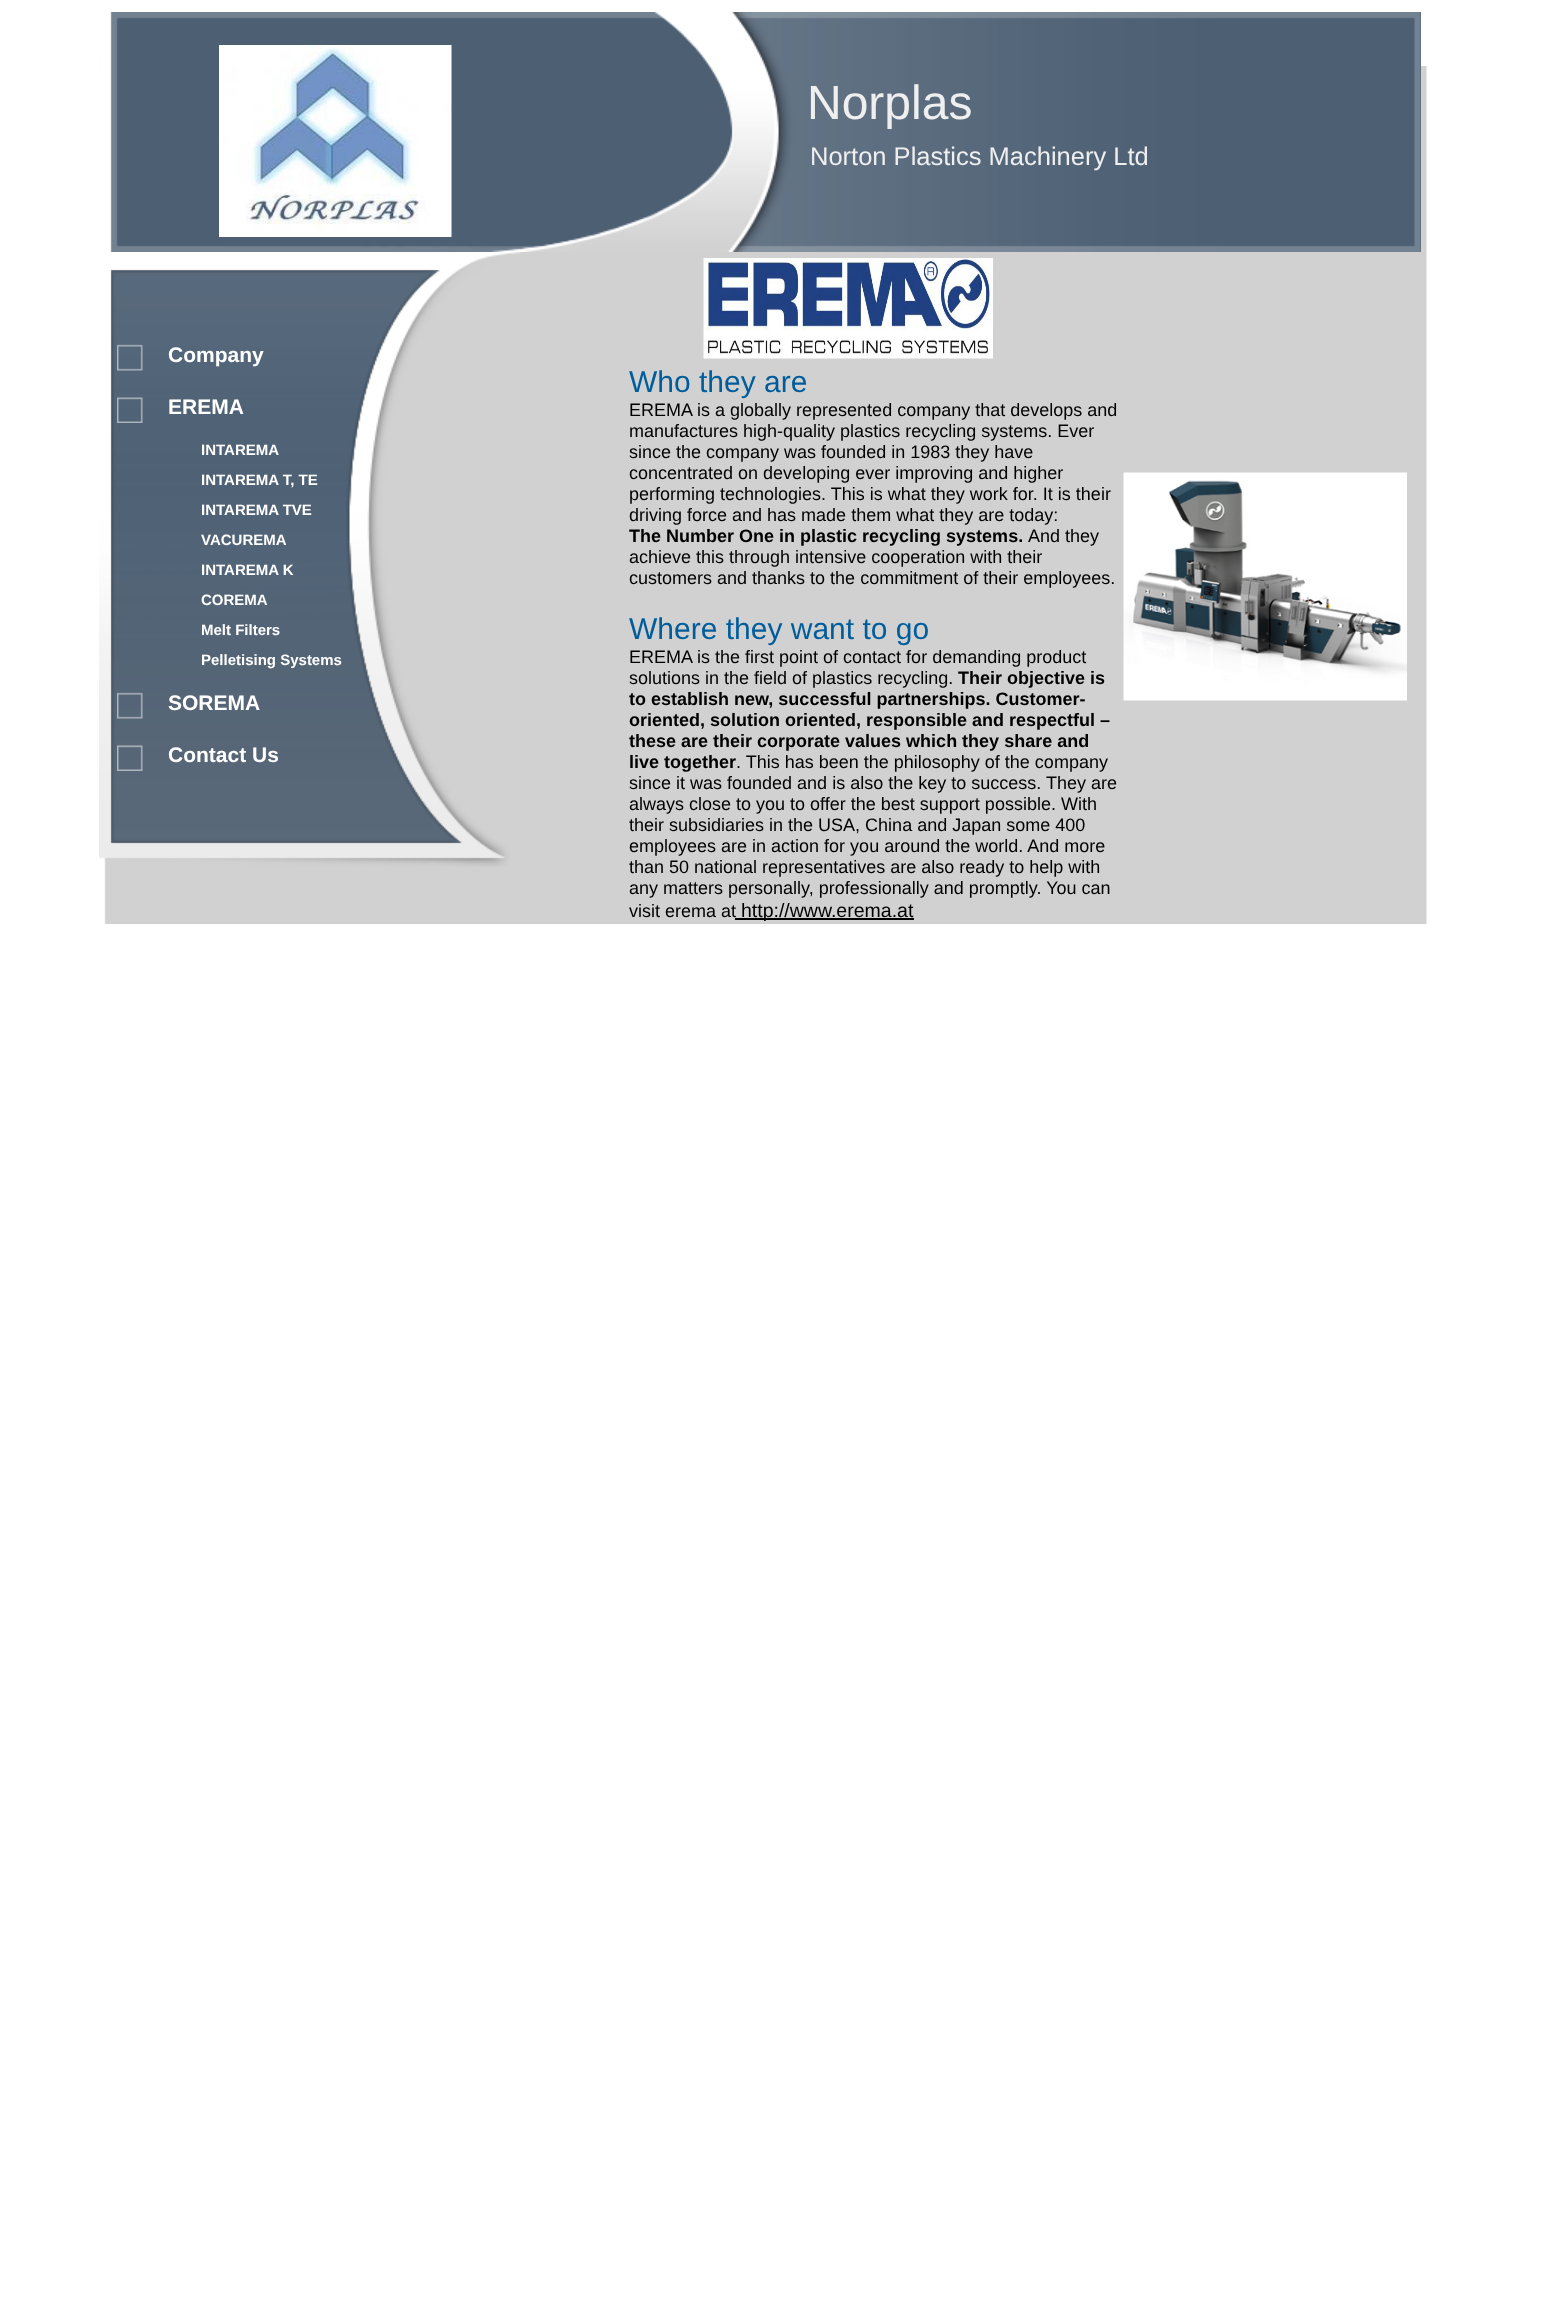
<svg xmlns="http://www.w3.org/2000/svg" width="1556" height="2302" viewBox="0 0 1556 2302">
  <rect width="100%" height="100%" fill="#ffffff"/>
  <image x="104" y="66" width="1323" height="858" href="img3.png"/>
  <rect x="99" y="12" width="1322" height="240" fill="#4c5f73"/>
  <image x="99" y="12" width="1322" height="240" href="img1.png"/>
  <image x="219" y="45" width="233" height="192" href="img2.png"/>
  <text x="807" y="119" font-family="Liberation Sans" font-size="48" fill="#efefef">Norplas</text>
  <text x="810" y="165" font-family="Liberation Sans" font-size="25.5" fill="#efefef">Norton Plastics Machinery Ltd</text>
  <rect x="111" y="270" width="351" height="573" fill="#4c5f73"/>
  <image x="99" y="252" width="422" height="615" href="img4.png"/>
  <image x="703" y="258" width="290" height="101" href="img5.png"/>
  <image x="117" y="344" width="26" height="27" href="img6.png"/>
  <text x="168" y="362" font-family="Liberation Sans" font-size="21" font-weight="bold" fill="#ffffff">Company</text>
  <image x="117" y="397" width="26" height="26" href="img7.png"/>
  <text x="168" y="414" font-family="Liberation Sans" font-size="21" font-weight="bold" fill="#ffffff">EREMA</text>
  <text x="201" y="455" font-family="Liberation Sans" font-size="15" font-weight="bold" fill="#ffffff">INTAREMA</text>
  <text x="201" y="485" font-family="Liberation Sans" font-size="15" font-weight="bold" fill="#ffffff">INTAREMA T, TE</text>
  <text x="201" y="515" font-family="Liberation Sans" font-size="15" font-weight="bold" fill="#ffffff">INTAREMA TVE</text>
  <text x="201" y="545" font-family="Liberation Sans" font-size="15" font-weight="bold" fill="#ffffff">VACUREMA</text>
  <text x="201" y="575" font-family="Liberation Sans" font-size="15" font-weight="bold" fill="#ffffff">INTAREMA K</text>
  <text x="201" y="605" font-family="Liberation Sans" font-size="15" font-weight="bold" fill="#ffffff">COREMA</text>
  <text x="201" y="635" font-family="Liberation Sans" font-size="15" font-weight="bold" fill="#ffffff">Melt Filters</text>
  <text x="201" y="665" font-family="Liberation Sans" font-size="15" font-weight="bold" fill="#ffffff">Pelletising Systems</text>
  <image x="117" y="692" width="26" height="27" href="img8.png"/>
  <text x="168" y="710" font-family="Liberation Sans" font-size="21" font-weight="bold" fill="#ffffff">SOREMA</text>
  <image x="117" y="745" width="26" height="26" href="img9.png"/>
  <text x="168" y="762" font-family="Liberation Sans" font-size="21" font-weight="bold" fill="#ffffff">Contact Us</text>
  <text x="629" y="392" font-family="Liberation Sans" font-size="30" fill="#005d9b">Who they are</text>
  <text x="629" y="416" font-family="Liberation Sans" font-size="18" fill="#000000">EREMA is a globally represented company that develops and</text>
  <text x="629" y="437" font-family="Liberation Sans" font-size="18" fill="#000000">manufactures high-quality plastics recycling systems. Ever</text>
  <text x="629" y="458" font-family="Liberation Sans" font-size="18" fill="#000000">since the company was founded in 1983 they have</text>
  <text x="629" y="479" font-family="Liberation Sans" font-size="18" fill="#000000">concentrated on developing ever improving and higher</text>
  <text x="629" y="500" font-family="Liberation Sans" font-size="18" fill="#000000">performing technologies. This is what they work for. It is their</text>
  <text x="629" y="521" font-family="Liberation Sans" font-size="18" fill="#000000">driving force and has made them what they are today:</text>
  <text x="629" y="542" font-family="Liberation Sans" font-size="18" font-weight="bold" fill="#000000">The Number One in plastic recycling systems.</text>
  <text x="1028" y="542" font-family="Liberation Sans" font-size="18" fill="#000000">And they</text>
  <text x="629" y="563" font-family="Liberation Sans" font-size="18" fill="#000000">achieve this through intensive cooperation with their</text>
  <text x="629" y="584" font-family="Liberation Sans" font-size="18" fill="#000000">customers and thanks to the commitment of their employees.</text>
  <text x="629" y="639" font-family="Liberation Sans" font-size="30" fill="#005d9b">Where they want to go</text>
  <text x="629" y="663" font-family="Liberation Sans" font-size="18" fill="#000000">EREMA is the first point of contact for demanding product</text>
  <text x="629" y="684" font-family="Liberation Sans" font-size="18" fill="#000000">solutions in the field of plastics recycling.</text>
  <text x="958" y="684" font-family="Liberation Sans" font-size="18" font-weight="bold" fill="#000000">Their objective is</text>
  <text x="629" y="705" font-family="Liberation Sans" font-size="18" font-weight="bold" fill="#000000">to establish new, successful partnerships. Customer-</text>
  <text x="629" y="726" font-family="Liberation Sans" font-size="18" font-weight="bold" fill="#000000">oriented, solution oriented, responsible and respectful –</text>
  <text x="629" y="747" font-family="Liberation Sans" font-size="18" font-weight="bold" fill="#000000">these are their corporate values which they share and</text>
  <text x="629" y="768" font-family="Liberation Sans" font-size="18" font-weight="bold" fill="#000000">live together</text>
  <text x="736" y="768" font-family="Liberation Sans" font-size="18" fill="#000000">. This has been the philosophy of the company</text>
  <text x="629" y="789" font-family="Liberation Sans" font-size="18" fill="#000000">since it was founded and is also the key to success. They are</text>
  <text x="629" y="810" font-family="Liberation Sans" font-size="18" fill="#000000">always close to you to offer the best support possible. With</text>
  <text x="629" y="831" font-family="Liberation Sans" font-size="18" fill="#000000">their subsidiaries in the USA, China and Japan some 400</text>
  <text x="629" y="852" font-family="Liberation Sans" font-size="18" fill="#000000">employees are in action for you around the world. And more</text>
  <text x="629" y="873" font-family="Liberation Sans" font-size="18" fill="#000000">than 50 national representatives are also ready to help with</text>
  <text x="629" y="894" font-family="Liberation Sans" font-size="18" fill="#000000">any matters personally, professionally and promptly. You can</text>
  <text x="629" y="917" font-family="Liberation Sans" font-size="18" fill="#000000">visit erema at</text>
  <rect x="735" y="918" width="179" height="2" fill="#000000"/>
  <text x="741" y="917" font-family="Liberation Sans" font-size="19.5" fill="#000000">http://www.erema.at</text>
  <image x="1123" y="472" width="284" height="229" href="img10.png"/>
</svg>
